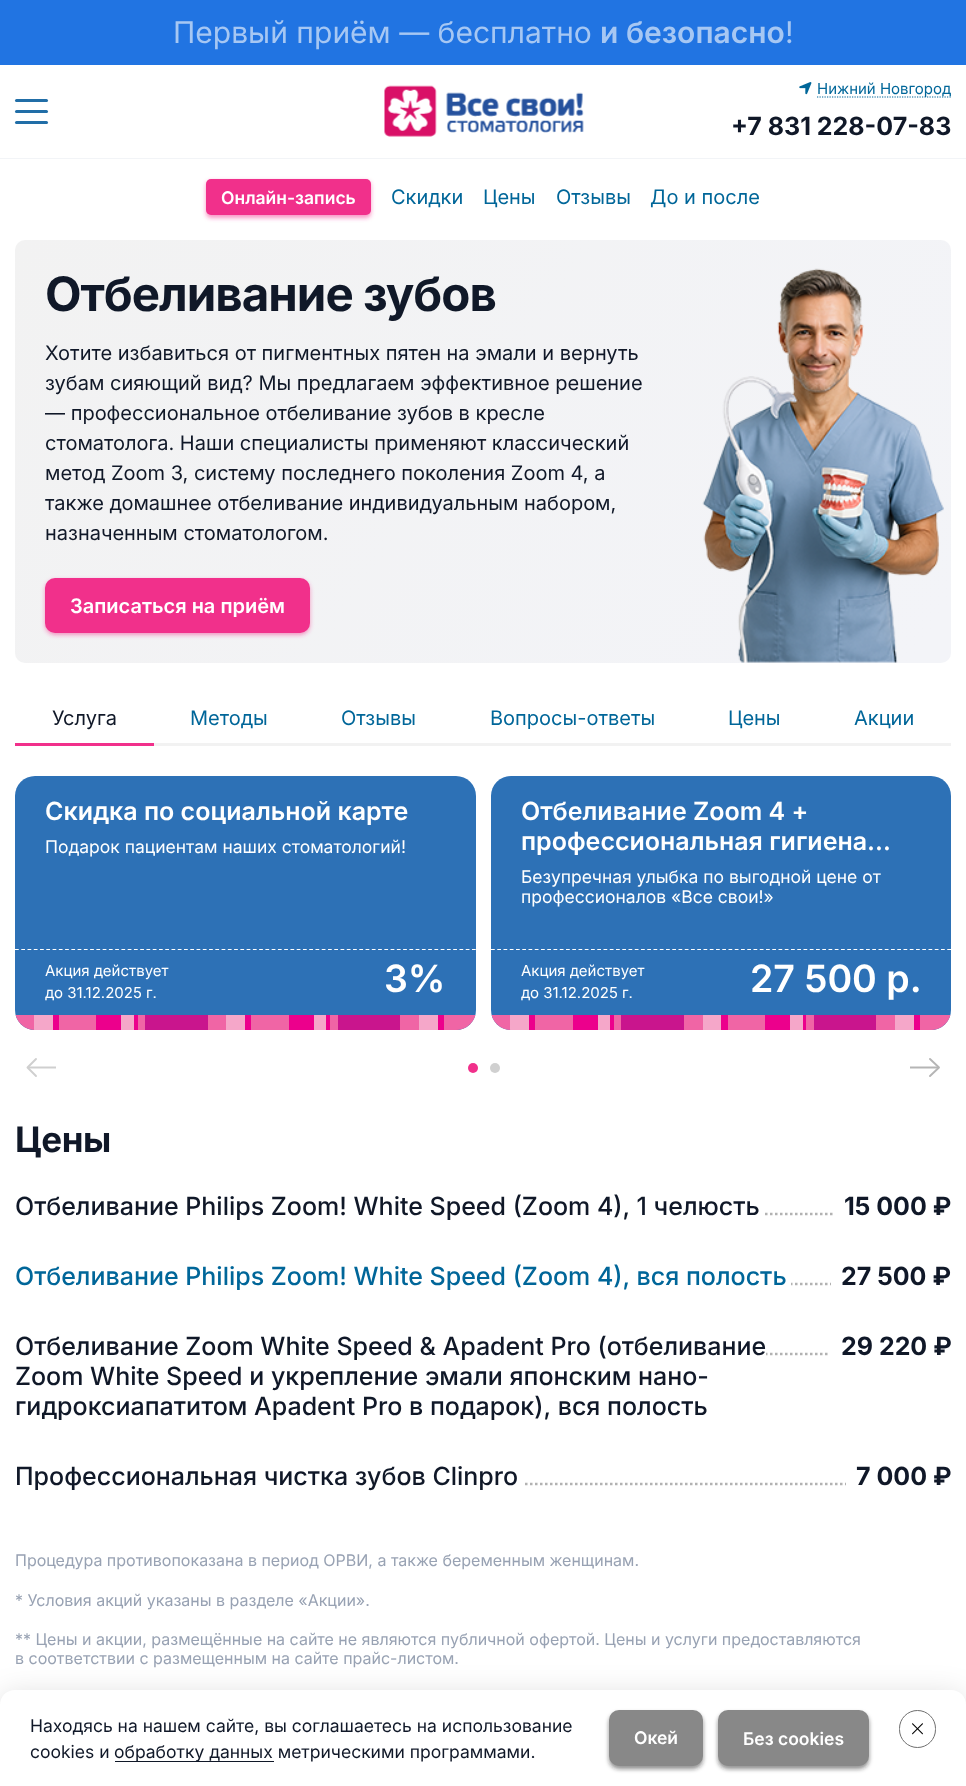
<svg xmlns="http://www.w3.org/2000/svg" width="966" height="1786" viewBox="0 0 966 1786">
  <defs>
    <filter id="blur1" x="-50%" y="-200%" width="200%" height="500%"><feGaussianBlur stdDeviation="2"/></filter>
    <linearGradient id="g1" gradientUnits="userSpaceOnUse" x1="55" y1="163" x2="903" y2="734"><stop offset="0" stop-color="#f2f2f2"/><stop offset="0.97" stop-color="#f3f4f8"/></linearGradient>
    <clipPath id="clip1"><rect x="26" y="1053" width="30" height="30"/></clipPath>
    <clipPath id="clip2"><rect x="910" y="1053" width="30" height="30"/></clipPath>
    <filter id="blur2" x="-50%" y="-200%" width="200%" height="500%"><feGaussianBlur stdDeviation="15"/></filter>
  </defs>
  <rect width="100%" height="100%" fill="#ffffff"/>
  <rect x="0" y="0" width="966" height="65" fill="#2174e2"/>
  <text x="173" y="43" font-family="Inter" font-size="30" fill="#a6c7f3">Первый приём — бесплатно</text>
  <text x="600" y="43" font-family="Inter" font-size="30" font-weight="600" fill="#a6c7f3">и безопасно</text>
  <text x="785" y="43" font-family="Inter" font-size="30" fill="#a6c7f3">!</text>
  <rect x="0" y="158" width="966" height="1" fill="#f2f4f7"/>
  <rect x="15" y="99" width="33" height="3" rx="1.5" fill="#216ea7"/>
  <rect x="15" y="110" width="33" height="3" rx="1.5" fill="#216ea7"/>
  <rect x="15" y="121" width="33" height="3" rx="1.5" fill="#216ea7"/>
  <image x="384" y="85" width="200" height="52" href="img1.png"/>
  <image x="799" y="82" width="13" height="13" href="img2.png"/>
  <path d="M817 97H951" fill="none" stroke="#006699" stroke-width="1.2" stroke-dasharray="1.25 1.25"/>
  <text x="817" y="94" font-family="Inter" font-size="15" fill="#006699">Нижний Новгород</text>
  <text x="731" y="135" font-family="Inter" font-size="25" font-weight="bold" fill="#101828">+7 831 228-07-83</text>
  <rect x="206" y="181" width="165" height="37" rx="5" fill="#f1308b" fill-opacity="0.5" filter="url(#blur1)"/>
  <rect x="206" y="179" width="165" height="36" rx="5" fill="#f1308b"/>
  <text x="221" y="204" font-family="Inter" font-size="17.5" font-weight="600" fill="#ffffff">Онлайн-запись</text>
  <text x="391" y="204" font-family="Inter" font-size="20" fill="#006699">Скидки</text>
  <text x="483" y="204" font-family="Inter" font-size="20" fill="#006699">Цены</text>
  <text x="556" y="204" font-family="Inter" font-size="20" fill="#006699">Отзывы</text>
  <text x="650" y="204" font-family="Inter" font-size="20" fill="#006699">До и после</text>
  <rect x="15" y="240" width="936" height="423" rx="10" fill="url(#g1)"/>
  <text x="45" y="311" font-family="Inter" font-size="47.5" font-weight="bold" letter-spacing="-1" fill="#101828">Отбеливание зубов</text>
  <text x="45" y="360" font-family="Inter" font-size="20" fill="#101828">Хотите избавиться от пигментных пятен на эмали и вернуть</text>
  <text x="45" y="390" font-family="Inter" font-size="20" fill="#101828">зубам сияющий вид? Мы предлагаем эффективное решение</text>
  <text x="45" y="420" font-family="Inter" font-size="20" fill="#101828">— профессиональное отбеливание зубов в кресле</text>
  <text x="45" y="450" font-family="Inter" font-size="20" fill="#101828">стоматолога. Наши специалисты применяют классический</text>
  <text x="45" y="480" font-family="Inter" font-size="20" fill="#101828">метод Zoom 3, систему последнего поколения Zoom 4, а</text>
  <text x="45" y="510" font-family="Inter" font-size="20" fill="#101828">также домашнее отбеливание индивидуальным набором,</text>
  <text x="45" y="540" font-family="Inter" font-size="20" fill="#101828">назначенным стоматологом.</text>
  <rect x="45" y="580" width="265" height="55" rx="10" fill="#f1308b" fill-opacity="0.5" filter="url(#blur1)"/>
  <rect x="45" y="578" width="265" height="55" rx="10" fill="#f1308b"/>
  <text x="70" y="613" font-family="Inter" font-size="20" font-weight="600" fill="#ffffff">Записаться на приём</text>
  <image x="702" y="268" width="242" height="395" href="img3.png"/>
  <rect x="15" y="743" width="139" height="3" fill="#f1308b"/>
  <text x="52" y="725" font-family="Inter" font-size="20" fill="#101828">Услуга</text>
  <rect x="154" y="743" width="797" height="3" fill="#f2f2f2"/>
  <text x="190" y="725" font-family="Inter" font-size="20" fill="#006699">Методы</text>
  <text x="341" y="725" font-family="Inter" font-size="20" fill="#006699">Отзывы</text>
  <text x="490" y="725" font-family="Inter" font-size="20" fill="#006699">Вопросы-ответы</text>
  <text x="728" y="725" font-family="Inter" font-size="20" fill="#006699">Цены</text>
  <text x="854" y="725" font-family="Inter" font-size="20" fill="#006699">Акции</text>
  <rect x="15" y="776" width="461" height="254" rx="20" fill="#2d71b6"/>
  <text x="45" y="820" font-family="Inter" font-size="25" font-weight="600" fill="#ffffff">Скидка по социальной карте</text>
  <text x="45" y="853" font-family="Inter" font-size="17.5" fill="#ffffff">Подарок пациентам наших стоматологий!</text>
  <path d="M15 949.5H476" fill="none" stroke="#ffffff" stroke-width="1.2" stroke-dasharray="3.75 2.51"/>
  <text x="45" y="976" font-family="Inter" font-size="15" fill="#ffffff">Акция действует</text>
  <text x="45" y="998" font-family="Inter" font-size="15" fill="#ffffff">до 31.12.2025 г.</text>
  <text x="384" y="992" font-family="Inter" font-size="37.5" font-weight="600" fill="#ffffff">3%</text>
  <image x="15" y="1015" width="461" height="15" href="img4.png"/>
  <rect x="491" y="776" width="460" height="254" rx="20" fill="#2d71b6"/>
  <text x="521" y="820" font-family="Inter" font-size="25" font-weight="600" fill="#ffffff">Отбеливание Zoom 4 +</text>
  <text x="521" y="850" font-family="Inter" font-size="25" font-weight="600" fill="#ffffff">профессиональная гигиена…</text>
  <text x="521" y="883" font-family="Inter" font-size="17.5" fill="#ffffff">Безупречная улыбка по выгодной цене от</text>
  <text x="521" y="903" font-family="Inter" font-size="17.5" fill="#ffffff">профессионалов «Все свои!»</text>
  <path d="M491 949.5H951" fill="none" stroke="#ffffff" stroke-width="1.2" stroke-dasharray="3.75 2.5"/>
  <text x="521" y="976" font-family="Inter" font-size="15" fill="#ffffff">Акция действует</text>
  <text x="521" y="998" font-family="Inter" font-size="15" fill="#ffffff">до 31.12.2025 г.</text>
  <text x="750" y="992" font-family="Inter" font-size="37.5" font-weight="600" fill="#ffffff">27 500 р.</text>
  <image x="491" y="1015" width="460" height="15" href="img5.png"/>
  <path d="M36 1059L27.5 1067.5L36 1076" fill="none" stroke="#cfcfcf" stroke-width="1.9" stroke-linecap="round" stroke-linejoin="round"/>
  <g clip-path="url(#clip1)">
    <path d="M29 1067.5H56" fill="none" stroke="#cfcfcf" stroke-width="1.9" stroke-linecap="round" stroke-linejoin="round"/>
  </g>
  <g clip-path="url(#clip2)">
    <path d="M910 1067.5H937.5" fill="none" stroke="#b5b5b5" stroke-width="1.9" stroke-linecap="round" stroke-linejoin="round"/>
  </g>
  <path d="M930 1059L939 1067.5L930 1076" fill="none" stroke="#b5b5b5" stroke-width="1.9" stroke-linecap="round" stroke-linejoin="round"/>
  <circle cx="473" cy="1068" r="5" fill="#f1308b"/>
  <circle cx="495" cy="1068" r="5" fill="#d0d0d0"/>
  <text x="15" y="1152" font-family="Inter" font-size="35" font-weight="bold" letter-spacing="-0.5" fill="#101828">Цены</text>
  <path d="M15 1214H834" fill="none" stroke="#b2b2b2" stroke-width="2.5" stroke-dasharray="2.5 2.5"/>
  <rect x="15" y="1212" width="748" height="4" fill="#ffffff"/>
  <text x="15" y="1215" font-family="Inter" font-size="25" font-weight="500" fill="#101828">Отбеливание Philips Zoom! White Speed (Zoom 4), 1 челюсть</text>
  <text x="844" y="1215" font-family="Inter" font-size="25" font-weight="bold" fill="#101828">15 000 ₽</text>
  <path d="M15 1284H831" fill="none" stroke="#b2b2b2" stroke-width="2.5" stroke-dasharray="2.5 2.5"/>
  <rect x="15" y="1282" width="776" height="4" fill="#ffffff"/>
  <text x="15" y="1285" font-family="Inter" font-size="25" font-weight="500" fill="#006699">Отбеливание Philips Zoom! White Speed (Zoom 4), вся полость</text>
  <text x="841" y="1285" font-family="Inter" font-size="25" font-weight="bold" fill="#101828">27 500 ₽</text>
  <path d="M15 1354H830" fill="none" stroke="#b2b2b2" stroke-width="2.5" stroke-dasharray="2.5 2.5"/>
  <rect x="15" y="1352" width="751" height="4" fill="#ffffff"/>
  <text x="15" y="1355" font-family="Inter" font-size="25" font-weight="500" fill="#101828">Отбеливание Zoom White Speed &amp; Apadent Pro (отбеливание</text>
  <text x="15" y="1385" font-family="Inter" font-size="25" font-weight="500" fill="#101828">Zoom White Speed и укрепление эмали японским нано-</text>
  <text x="15" y="1415" font-family="Inter" font-size="25" font-weight="500" fill="#101828">гидроксиапатитом Apadent Pro в подарок), вся полость</text>
  <text x="841" y="1355" font-family="Inter" font-size="25" font-weight="bold" fill="#101828">29 220 ₽</text>
  <path d="M15 1484H846" fill="none" stroke="#b2b2b2" stroke-width="2.5" stroke-dasharray="2.5 2.5"/>
  <rect x="15" y="1482" width="508" height="4" fill="#ffffff"/>
  <text x="15" y="1485" font-family="Inter" font-size="25" font-weight="500" fill="#101828">Профессиональная чистка зубов Clinpro</text>
  <text x="856" y="1485" font-family="Inter" font-size="25" font-weight="bold" fill="#101828">7 000 ₽</text>
  <text x="15" y="1566" font-family="Inter" font-size="16" fill="#98a2b3">Процедура противопоказана в период ОРВИ, а также беременным женщинам.</text>
  <text x="15" y="1606" font-family="Inter" font-size="16" fill="#98a2b3">* Условия акций указаны в разделе «Акции».</text>
  <text x="15" y="1645" font-family="Inter" font-size="16" fill="#98a2b3">** Цены и акции, размещённые на сайте не являются публичной офертой. Цены и услуги предоставляются</text>
  <text x="15" y="1664" font-family="Inter" font-size="16" fill="#98a2b3">в соответствии с размещенным на сайте прайс-листом.</text>
  <rect x="0" y="1695" width="966" height="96" rx="15" fill="#101828" fill-opacity="0.14" filter="url(#blur2)"/>
  <path d="M15 1690H951C959.5 1690 966 1696.5 966 1705V1786H0V1705C0 1696.5 6.5 1690 15 1690Z" fill="#ffffff"/>
  <text x="30" y="1732" font-family="Inter" font-size="17.5" fill="#101828">Находясь на нашем сайте, вы соглашаетесь на использование</text>
  <text x="30" y="1758" font-family="Inter" font-size="17.5" fill="#101828">cookies и</text>
  <rect x="115" y="1761" width="159" height="1" fill="#101828"/>
  <text x="114" y="1758" font-family="Inter" font-size="17.5" fill="#101828">обработку данных метрическими программами.</text>
  <rect x="609" y="1713" width="94" height="56" rx="10" fill="#222222" fill-opacity="0.5" filter="url(#blur1)"/>
  <rect x="609" y="1710" width="94" height="56" rx="10" fill="#888888"/>
  <text x="634" y="1744" font-family="Inter" font-size="17.5" font-weight="600" fill="#ffffff">Окей</text>
  <rect x="718" y="1713" width="151" height="56" rx="10" fill="#222222" fill-opacity="0.5" filter="url(#blur1)"/>
  <rect x="718" y="1710" width="151" height="56" rx="10" fill="#888888"/>
  <text x="743" y="1745" font-family="Inter" font-size="17.5" font-weight="600" fill="#ffffff">Без cookies</text>
  <rect x="899.5" y="1710.5" width="36" height="37" rx="18" fill="none" stroke="#6f6f6f"/>
  <path d="M922.5 1723L923 1724L912.5 1734.5L912 1733.5Z" fill="#000000"/>
  <path d="M912 1724L912.5 1723L923 1733.5L922.5 1734.5Z" fill="#000000"/>
</svg>
